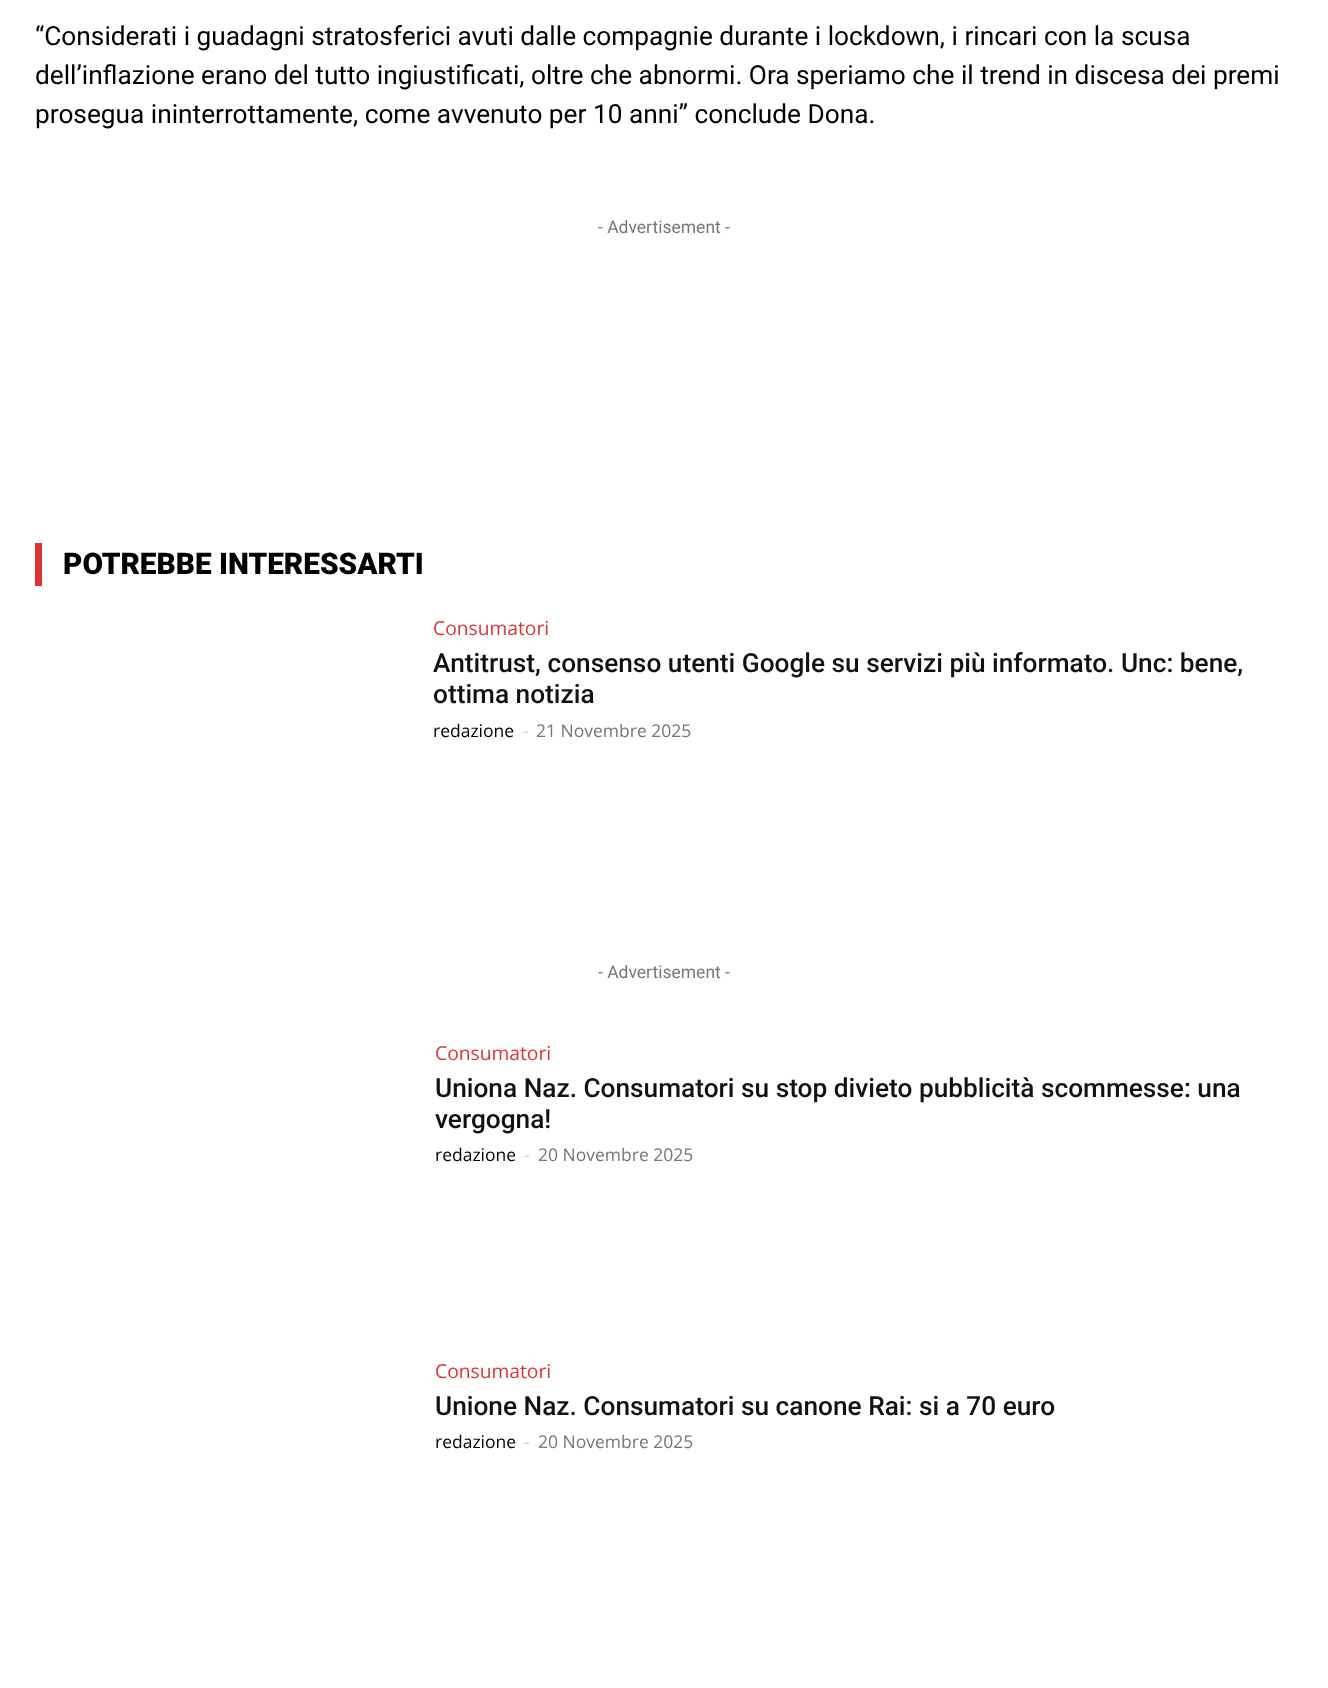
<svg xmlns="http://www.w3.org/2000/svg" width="1328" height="1688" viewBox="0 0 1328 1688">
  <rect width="100%" height="100%" fill="#ffffff"/>
  <text x="35" y="45" font-family="Roboto" font-size="26.25" fill="#000000">“Considerati i guadagni stratosferici avuti dalle compagnie durante i lockdown, i rincari con la scusa</text>
  <text x="35" y="84" font-family="Roboto" font-size="26.25" fill="#000000">dell’inflazione erano del tutto ingiustificati, oltre che abnormi. Ora speriamo che il trend in discesa dei premi</text>
  <text x="35" y="123" font-family="Roboto" font-size="26.25" fill="#000000">prosegua ininterrottamente, come avvenuto per 10 anni” conclude Dona.</text>
  <text x="598" y="233" font-family="Roboto" font-size="17.5" fill="#767676">- Advertisement -</text>
  <rect x="35" y="543" width="7" height="43" fill="#dd3333"/>
  <text x="63" y="574" font-family="Roboto" font-size="29.75" font-weight="900" fill="#000000">POTREBBE INTERESSARTI</text>
  <text x="433" y="635" font-family="Open Sans" font-size="19.25" fill="#dd3333">Consumatori</text>
  <text x="433" y="672" font-family="Roboto" font-size="26.25" font-weight="500" fill="#111111">Antitrust, consenso utenti Google su servizi più informato. Unc: bene,</text>
  <text x="433" y="703" font-family="Roboto" font-size="26.25" font-weight="500" fill="#111111">ottima notizia</text>
  <text x="433" y="737" font-family="Open Sans" font-size="17.5" fill="#000000">redazione</text>
  <text x="523" y="737" font-family="Open Sans" font-size="17.5" fill="#cccccc">-</text>
  <text x="536" y="737" font-family="Open Sans" font-size="17.5" fill="#767676">21 Novembre 2025</text>
  <text x="598" y="978" font-family="Roboto" font-size="17.5" fill="#767676">- Advertisement -</text>
  <text x="435" y="1060" font-family="Open Sans" font-size="19.25" fill="#dd3333">Consumatori</text>
  <text x="435" y="1097" font-family="Roboto" font-size="26.25" font-weight="500" fill="#111111">Uniona Naz. Consumatori su stop divieto pubblicità scommesse: una</text>
  <text x="435" y="1128" font-family="Roboto" font-size="26.25" font-weight="500" fill="#111111">vergogna!</text>
  <text x="435" y="1161" font-family="Open Sans" font-size="17.5" fill="#000000">redazione</text>
  <text x="524" y="1161" font-family="Open Sans" font-size="17.5" fill="#cccccc">-</text>
  <text x="538" y="1161" font-family="Open Sans" font-size="17.5" fill="#767676">20 Novembre 2025</text>
  <text x="435" y="1378" font-family="Open Sans" font-size="19.25" fill="#dd3333">Consumatori</text>
  <text x="435" y="1415" font-family="Roboto" font-size="26.25" font-weight="500" fill="#111111">Unione Naz. Consumatori su canone Rai: si a 70 euro</text>
  <text x="435" y="1448" font-family="Open Sans" font-size="17.5" fill="#000000">redazione</text>
  <text x="524" y="1448" font-family="Open Sans" font-size="17.5" fill="#cccccc">-</text>
  <text x="538" y="1448" font-family="Open Sans" font-size="17.5" fill="#767676">20 Novembre 2025</text>
</svg>
